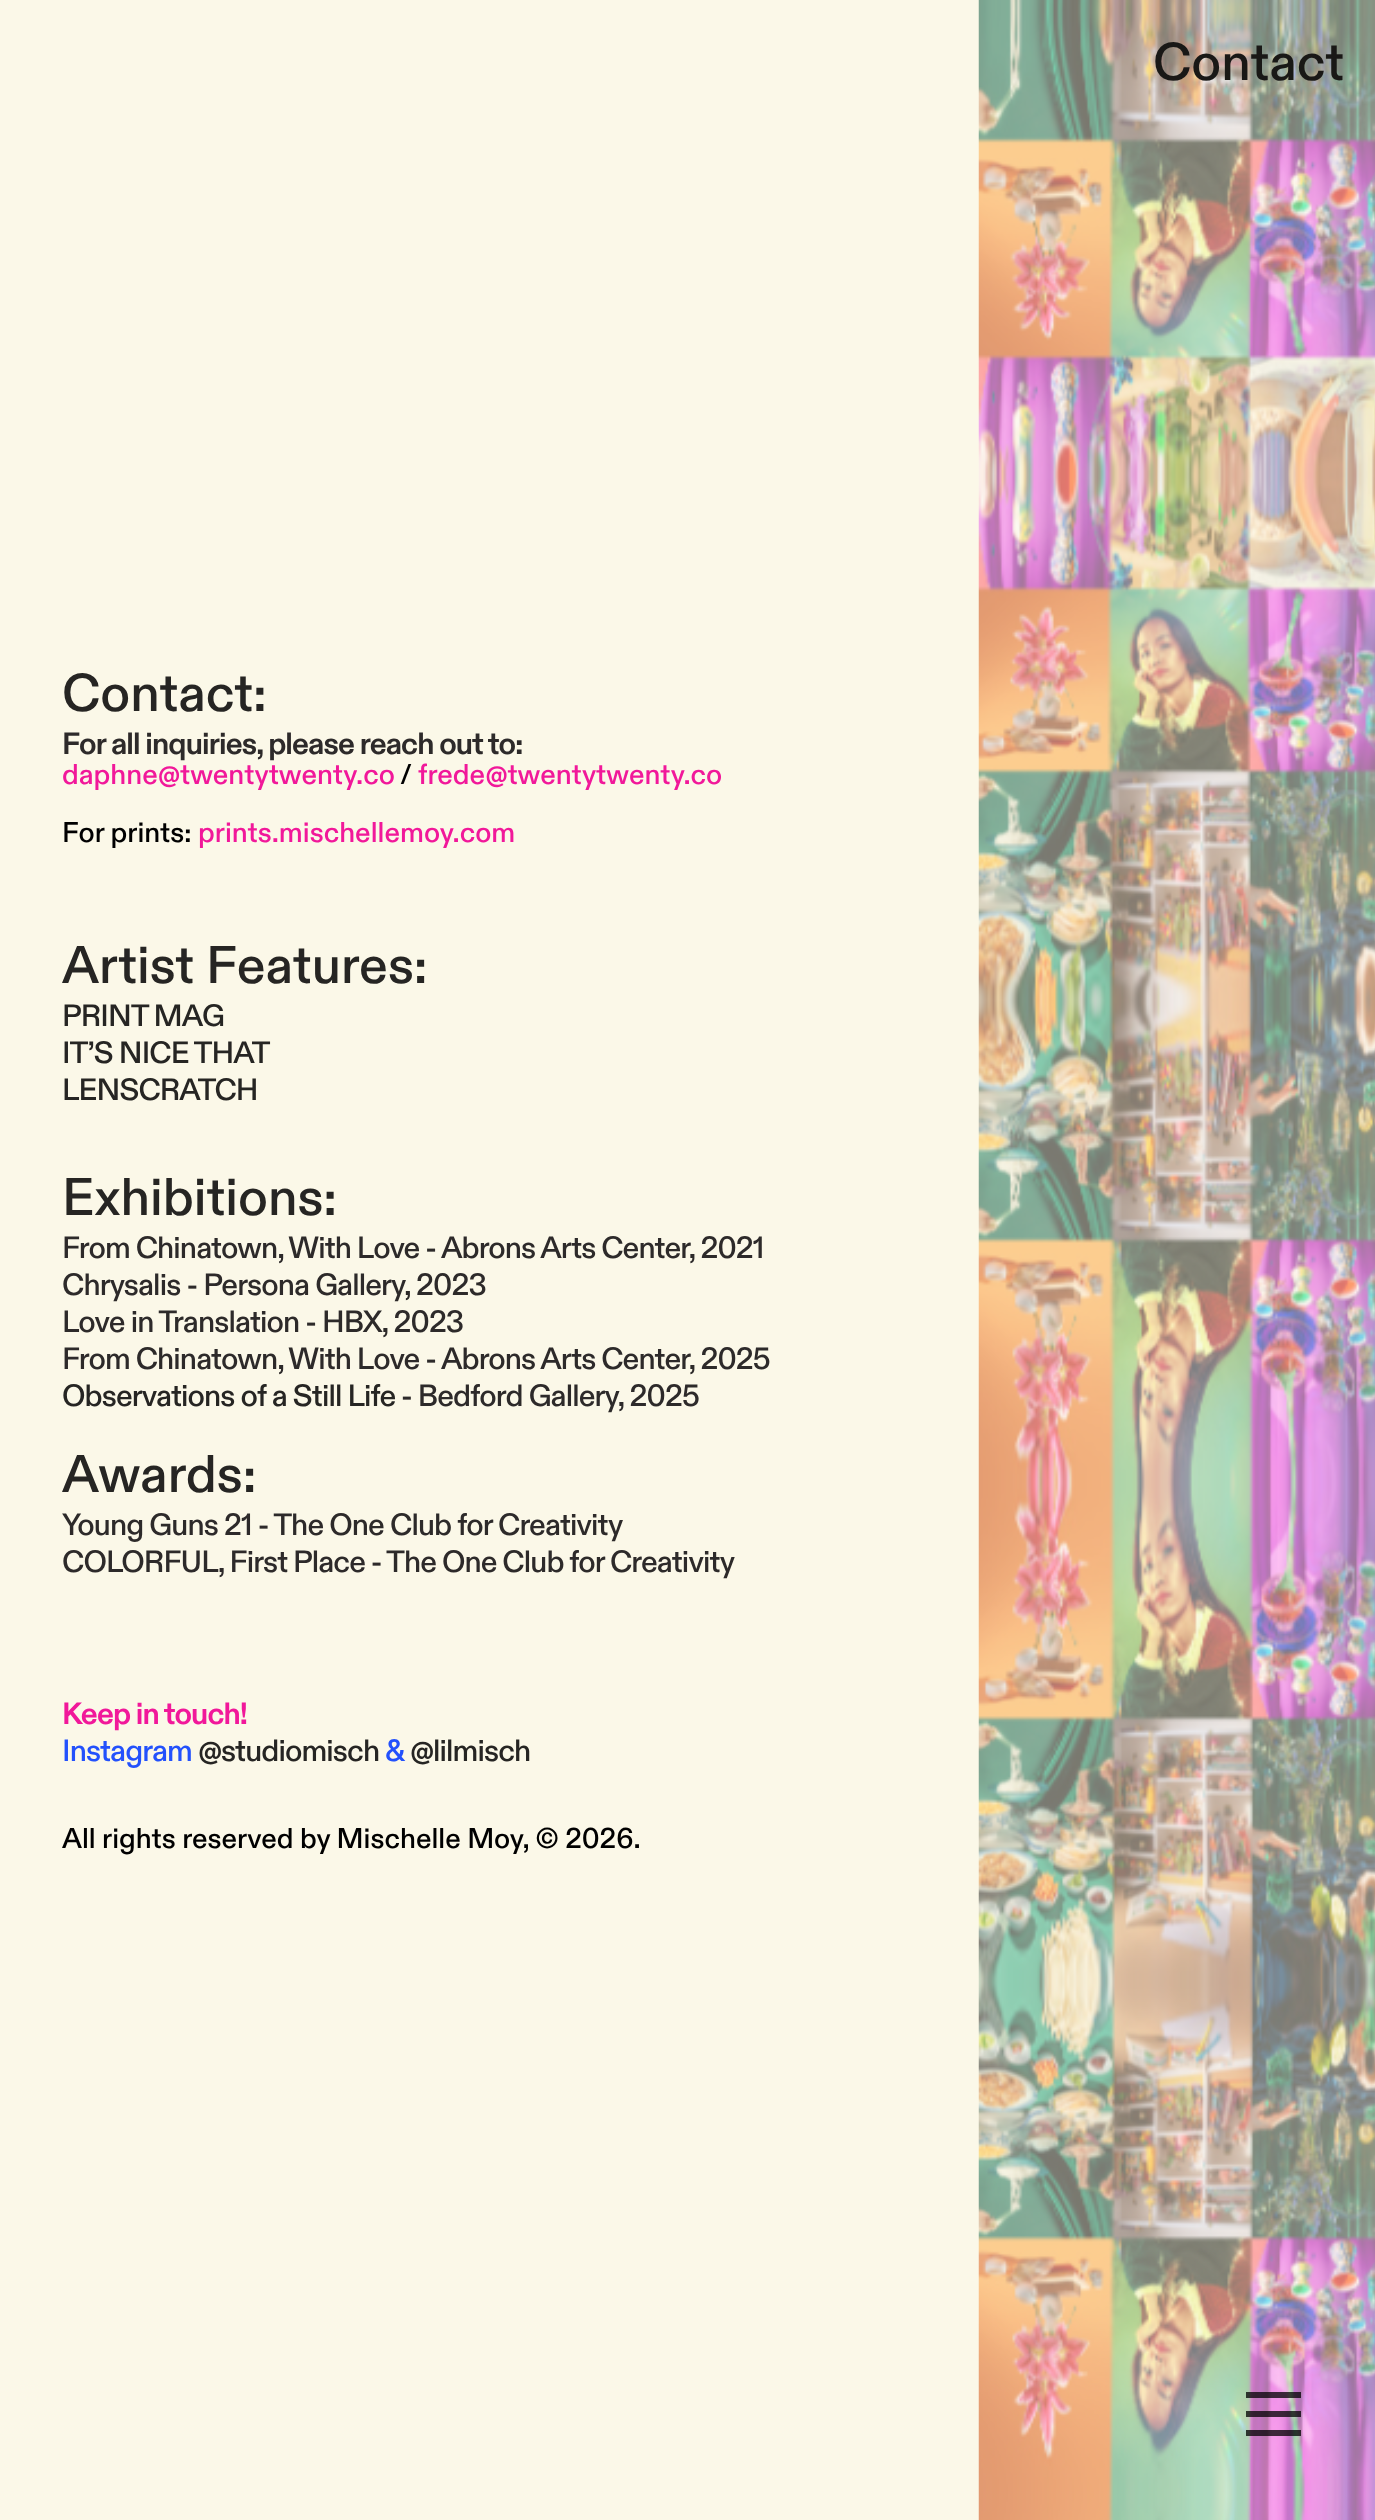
<svg xmlns="http://www.w3.org/2000/svg" width="1375" height="2520" viewBox="0 0 1375 2520">
  <rect width="100%" height="100%" fill="#fbf8e8"/>
  <image x="978" y="0" width="397" height="2520" href="img1.png"/>
  <text x="1153" y="80" font-family="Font" font-size="53" font-weight="500" fill="#191816">Contact</text>
  <text x="62" y="711" font-family="Font" font-size="53" font-weight="500" fill="#262523">Contact:</text>
  <text x="62" y="754" font-family="Font" font-size="30.8" font-weight="bold" letter-spacing="-0.88" fill="#2d2a2a">For all inquiries, please reach out to:</text>
  <text x="62" y="784" font-family="Font" font-size="28.6" font-weight="500" fill="#f1189a">daphne@twentytwenty.co</text>
  <text x="400" y="784" font-family="Font" font-size="28.6" font-weight="500" fill="#000000">/</text>
  <text x="418" y="784" font-family="Font" font-size="28.6" font-weight="500" fill="#f1189a">frede@twentytwenty.co</text>
  <text x="62" y="842" font-family="Font" font-size="28.6" font-weight="500" fill="#000000">For prints:</text>
  <text x="198" y="842" font-family="Font" font-size="28.6" font-weight="500" fill="#f1189a">prints.mischellemoy.com</text>
  <text x="62" y="983" font-family="Font" font-size="53" font-weight="500" fill="#262523">Artist Features:</text>
  <text x="62" y="1026" font-family="Font" font-size="30.8" font-weight="500" letter-spacing="-0.88" fill="#262523">PRINT MAG</text>
  <text x="62" y="1063" font-family="Font" font-size="30.8" font-weight="500" letter-spacing="-0.88" fill="#262523">IT’S NICE THAT</text>
  <text x="62" y="1100" font-family="Font" font-size="30.8" font-weight="500" letter-spacing="-0.88" fill="#262523">LENSCRATCH</text>
  <text x="62" y="1215" font-family="Font" font-size="53" font-weight="500" fill="#262523">Exhibitions:</text>
  <text x="62" y="1258" word-spacing="-0.25" font-family="Font" font-size="30.8" font-weight="500" letter-spacing="-0.88" fill="#2d2a2a">From Chinatown, With Love - Abrons Arts Center, 2021</text>
  <text x="62" y="1295" font-family="Font" font-size="30.8" font-weight="500" letter-spacing="-0.88" fill="#2d2a2a">Chrysalis - Persona Gallery, 2023</text>
  <text x="62" y="1332" font-family="Font" font-size="30.8" font-weight="500" letter-spacing="-0.88" fill="#2d2a2a">Love in Translation - HBX, 2023</text>
  <text x="62" y="1369" word-spacing="-0.25" font-family="Font" font-size="30.8" font-weight="500" letter-spacing="-0.88" fill="#2d2a2a">From Chinatown, With Love - Abrons Arts Center, 2025</text>
  <text x="62" y="1406" font-family="Font" font-size="30.8" font-weight="500" letter-spacing="-0.88" fill="#262523">Observations of a Still Life</text>
  <text x="401" y="1406" font-family="Font" font-size="30.8" font-weight="500" letter-spacing="-0.88" fill="#2d2a2a">- Bedford Gallery, 2025</text>
  <text x="62" y="1492" font-family="Font" font-size="53" font-weight="500" fill="#262523">Awards:</text>
  <text x="62" y="1535" font-family="Font" font-size="30.8" font-weight="500" letter-spacing="-0.88" fill="#2d2a2a">Young Guns 21 - The One Club for Creativity</text>
  <text x="62" y="1572" word-spacing="-0.25" font-family="Font" font-size="30.8" font-weight="500" letter-spacing="-0.88" fill="#2d2a2a">COLORFUL, First Place - The One Club for Creativity</text>
  <text x="62" y="1724" font-family="Font" font-size="30.8" font-weight="bold" letter-spacing="-0.88" fill="#f1189a">Keep in touch!</text>
  <text x="62" y="1761" font-family="Font" font-size="30.8" font-weight="500" letter-spacing="-0.88" fill="#2351fc">Instagram</text>
  <text x="198" y="1761" font-family="Font" font-size="30.8" font-weight="500" letter-spacing="-0.88" fill="#262523">@studiomisch</text>
  <text x="385" y="1761" font-family="Font" font-size="30.8" font-weight="500" letter-spacing="-0.88" fill="#2351fc">&amp;</text>
  <text x="410" y="1761" font-family="Font" font-size="30.8" font-weight="500" letter-spacing="-0.88" fill="#262523">@lilmisch</text>
  <text x="62" y="1848" font-family="Font" font-size="28.6" font-weight="500" fill="#000000">All rights reserved by Mischelle Moy, © 2026.</text>
  <path d="M1301 2392V2398H1246V2392ZM1301 2411V2417H1246V2411ZM1301 2430V2436H1246V2430Z" fill="#000000" fill-opacity="0.75"/>
</svg>
